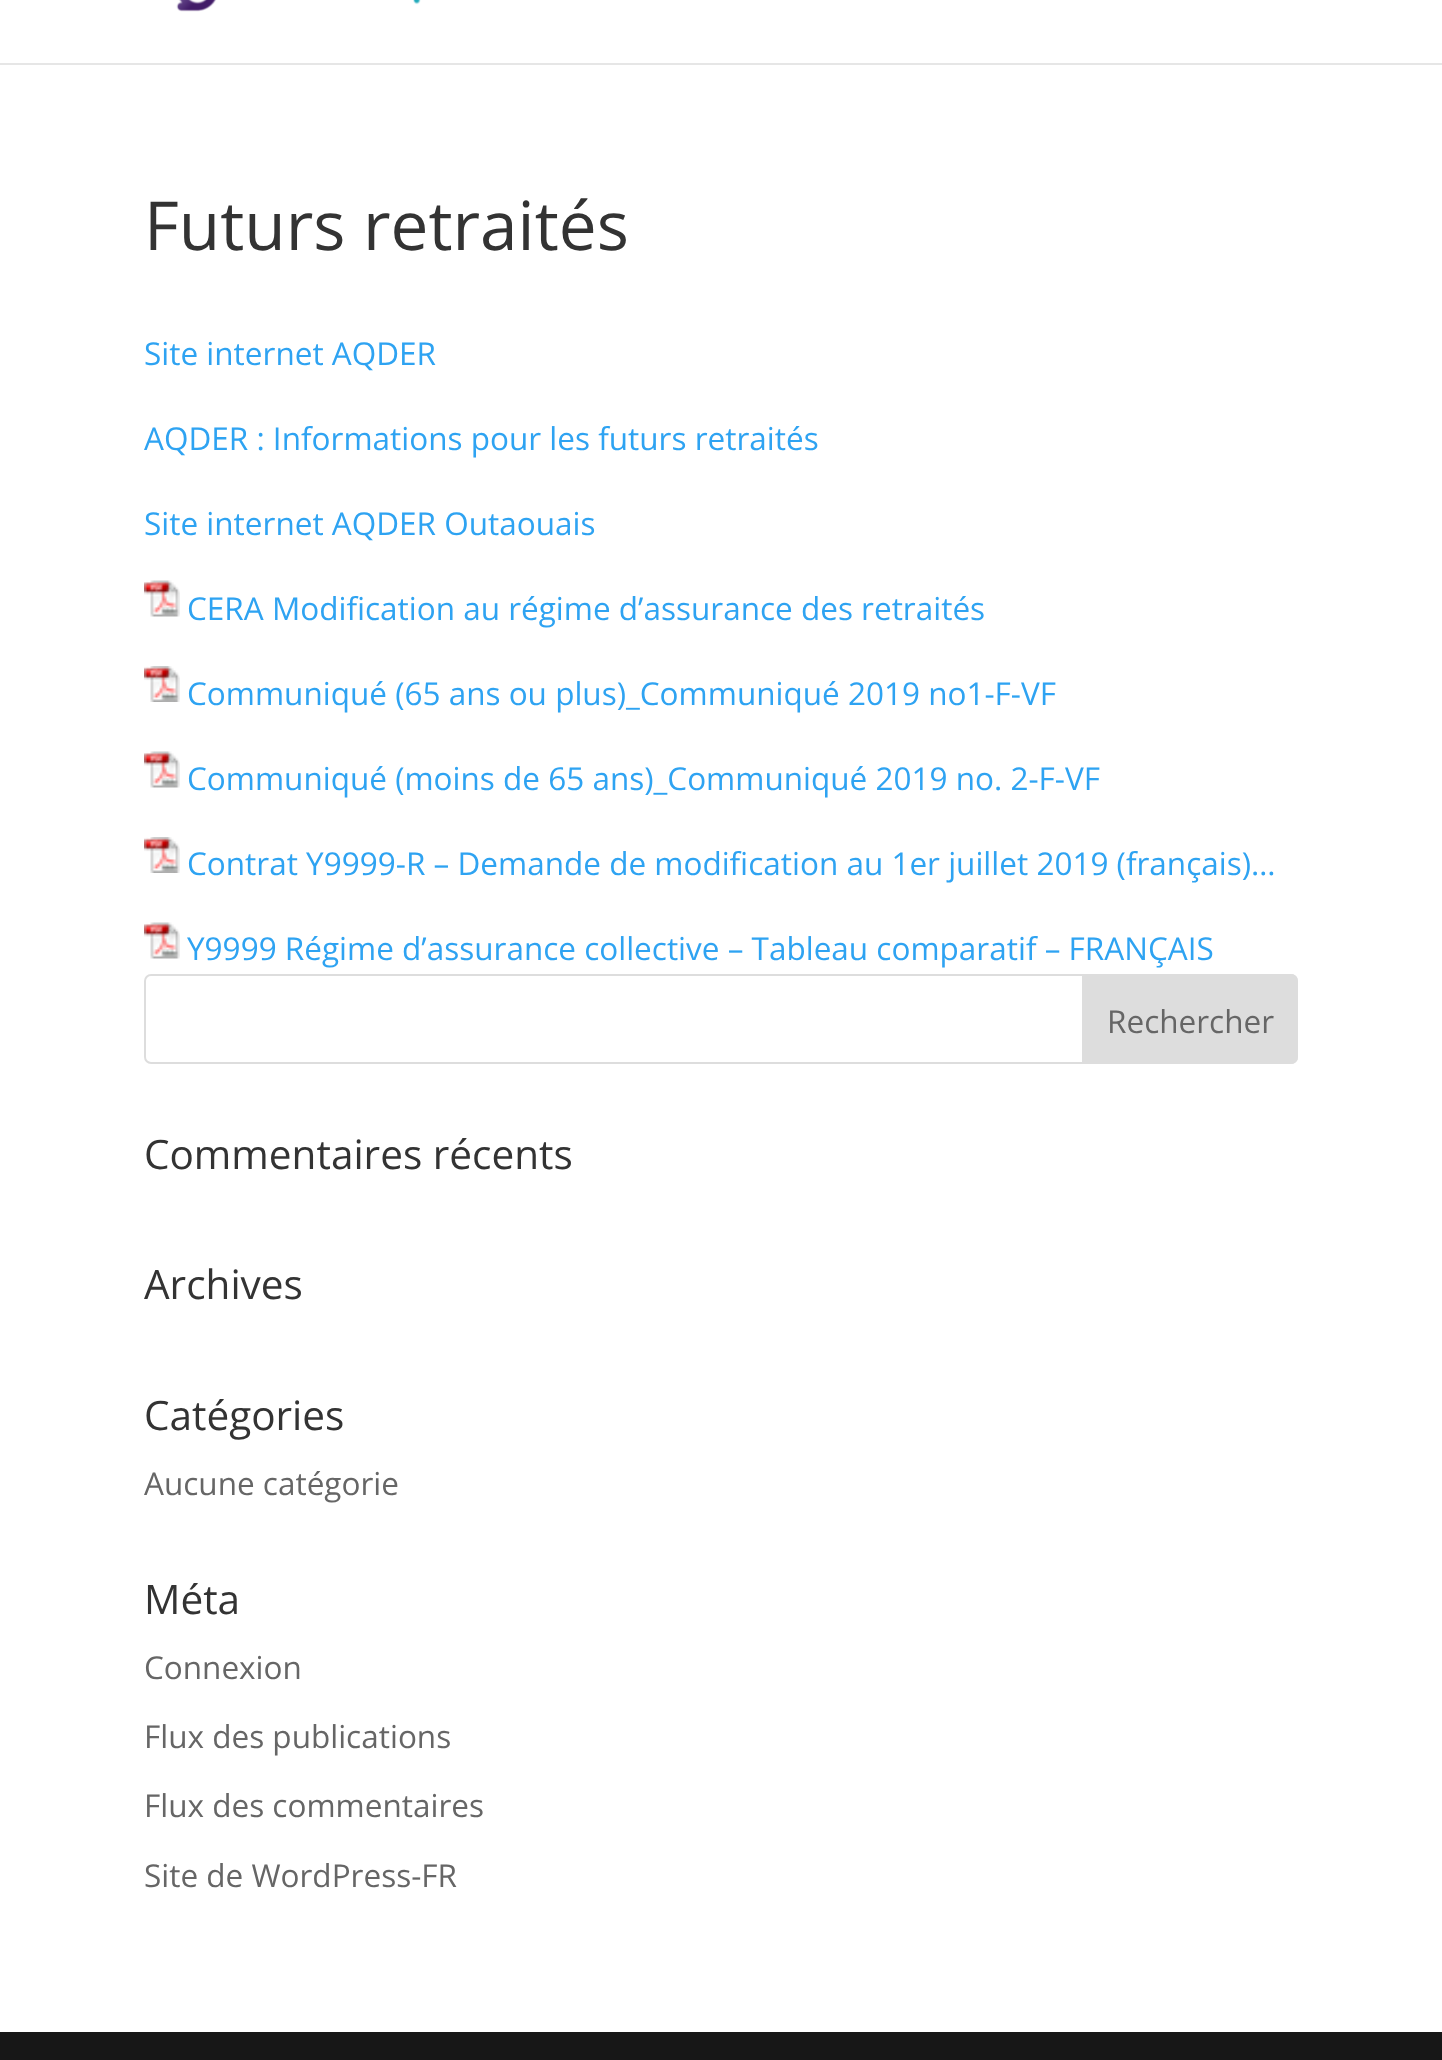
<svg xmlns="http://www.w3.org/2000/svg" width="1442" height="2060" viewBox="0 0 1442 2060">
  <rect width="100%" height="100%" fill="#ffffff"/>
  <rect x="0" y="63" width="1442" height="2" fill="#e6e6e6"/>
  <image x="176" y="0" width="245" height="12" href="img1.png"/>
  <text x="144" y="250" font-family="Open Sans" font-size="67.5" fill="#333333">Futurs retraités</text>
  <text x="144" y="365" font-family="Open Sans" font-size="31.5" fill="#2ea3f2">Site internet AQDER</text>
  <text x="144" y="450" font-family="Open Sans" font-size="31.5" fill="#2ea3f2">AQDER : Informations pour les futurs retraités</text>
  <text x="144" y="535" font-family="Open Sans" font-size="31.5" fill="#2ea3f2">Site internet AQDER Outaouais</text>
  <image x="144" y="580" width="36" height="37" href="img2.png"/>
  <text x="187" y="620" font-family="Open Sans" font-size="31.5" fill="#2ea3f2">CERA Modification au régime d’assurance des retraités</text>
  <image x="144" y="666" width="36" height="36" href="img3.png"/>
  <text x="187" y="705" font-family="Open Sans" font-size="31.5" fill="#2ea3f2">Communiqué (65 ans ou plus)_Communiqué 2019 no1-F-VF</text>
  <image x="144" y="751" width="36" height="37" href="img2.png"/>
  <text x="187" y="790" font-family="Open Sans" font-size="31.5" fill="#2ea3f2">Communiqué (moins de 65 ans)_Communiqué 2019 no. 2-F-VF</text>
  <image x="144" y="837" width="36" height="36" href="img3.png"/>
  <text x="187" y="875" font-family="Open Sans" font-size="31.5" fill="#2ea3f2">Contrat Y9999-R – Demande de modification au 1er juillet 2019 (français)…</text>
  <image x="144" y="922" width="36" height="37" href="img2.png"/>
  <text x="187" y="960" font-family="Open Sans" font-size="31.5" fill="#2ea3f2">Y9999 Régime d’assurance collective – Tableau comparatif – FRANÇAIS</text>
  <rect x="145" y="975" width="1152" height="88" rx="6" fill="none" stroke="#dddddd" stroke-width="2"/>
  <path d="M1083 975H1291C1294.5 975 1297 977.5 1297 981V1057C1297 1060.5 1294.5 1063 1291 1063H1083Z" fill="#dddddd" stroke="#dddddd" stroke-width="2"/>
  <text x="1107" y="1033" font-family="Open Sans" font-size="31.5" fill="#666666">Rechercher</text>
  <text x="144" y="1169" font-family="Open Sans" font-size="40.5" fill="#333333">Commentaires récents</text>
  <text x="144" y="1299" font-family="Open Sans" font-size="40.5" fill="#333333">Archives</text>
  <text x="144" y="1430" font-family="Open Sans" font-size="40.5" fill="#333333">Catégories</text>
  <text x="144" y="1495" font-family="Open Sans" font-size="31.5" fill="#666666">Aucune catégorie</text>
  <text x="144" y="1614" font-family="Open Sans" font-size="40.5" fill="#333333">Méta</text>
  <text x="144" y="1679" font-family="Open Sans" font-size="31.5" fill="#666666">Connexion</text>
  <text x="144" y="1748" font-family="Open Sans" font-size="31.5" fill="#666666">Flux des publications</text>
  <text x="144" y="1817" font-family="Open Sans" font-size="31.5" fill="#666666">Flux des commentaires</text>
  <text x="144" y="1887" font-family="Open Sans" font-size="31.5" fill="#666666">Site de WordPress-FR</text>
  <rect x="0" y="2032" width="1442" height="28" fill="#171717"/>
</svg>
